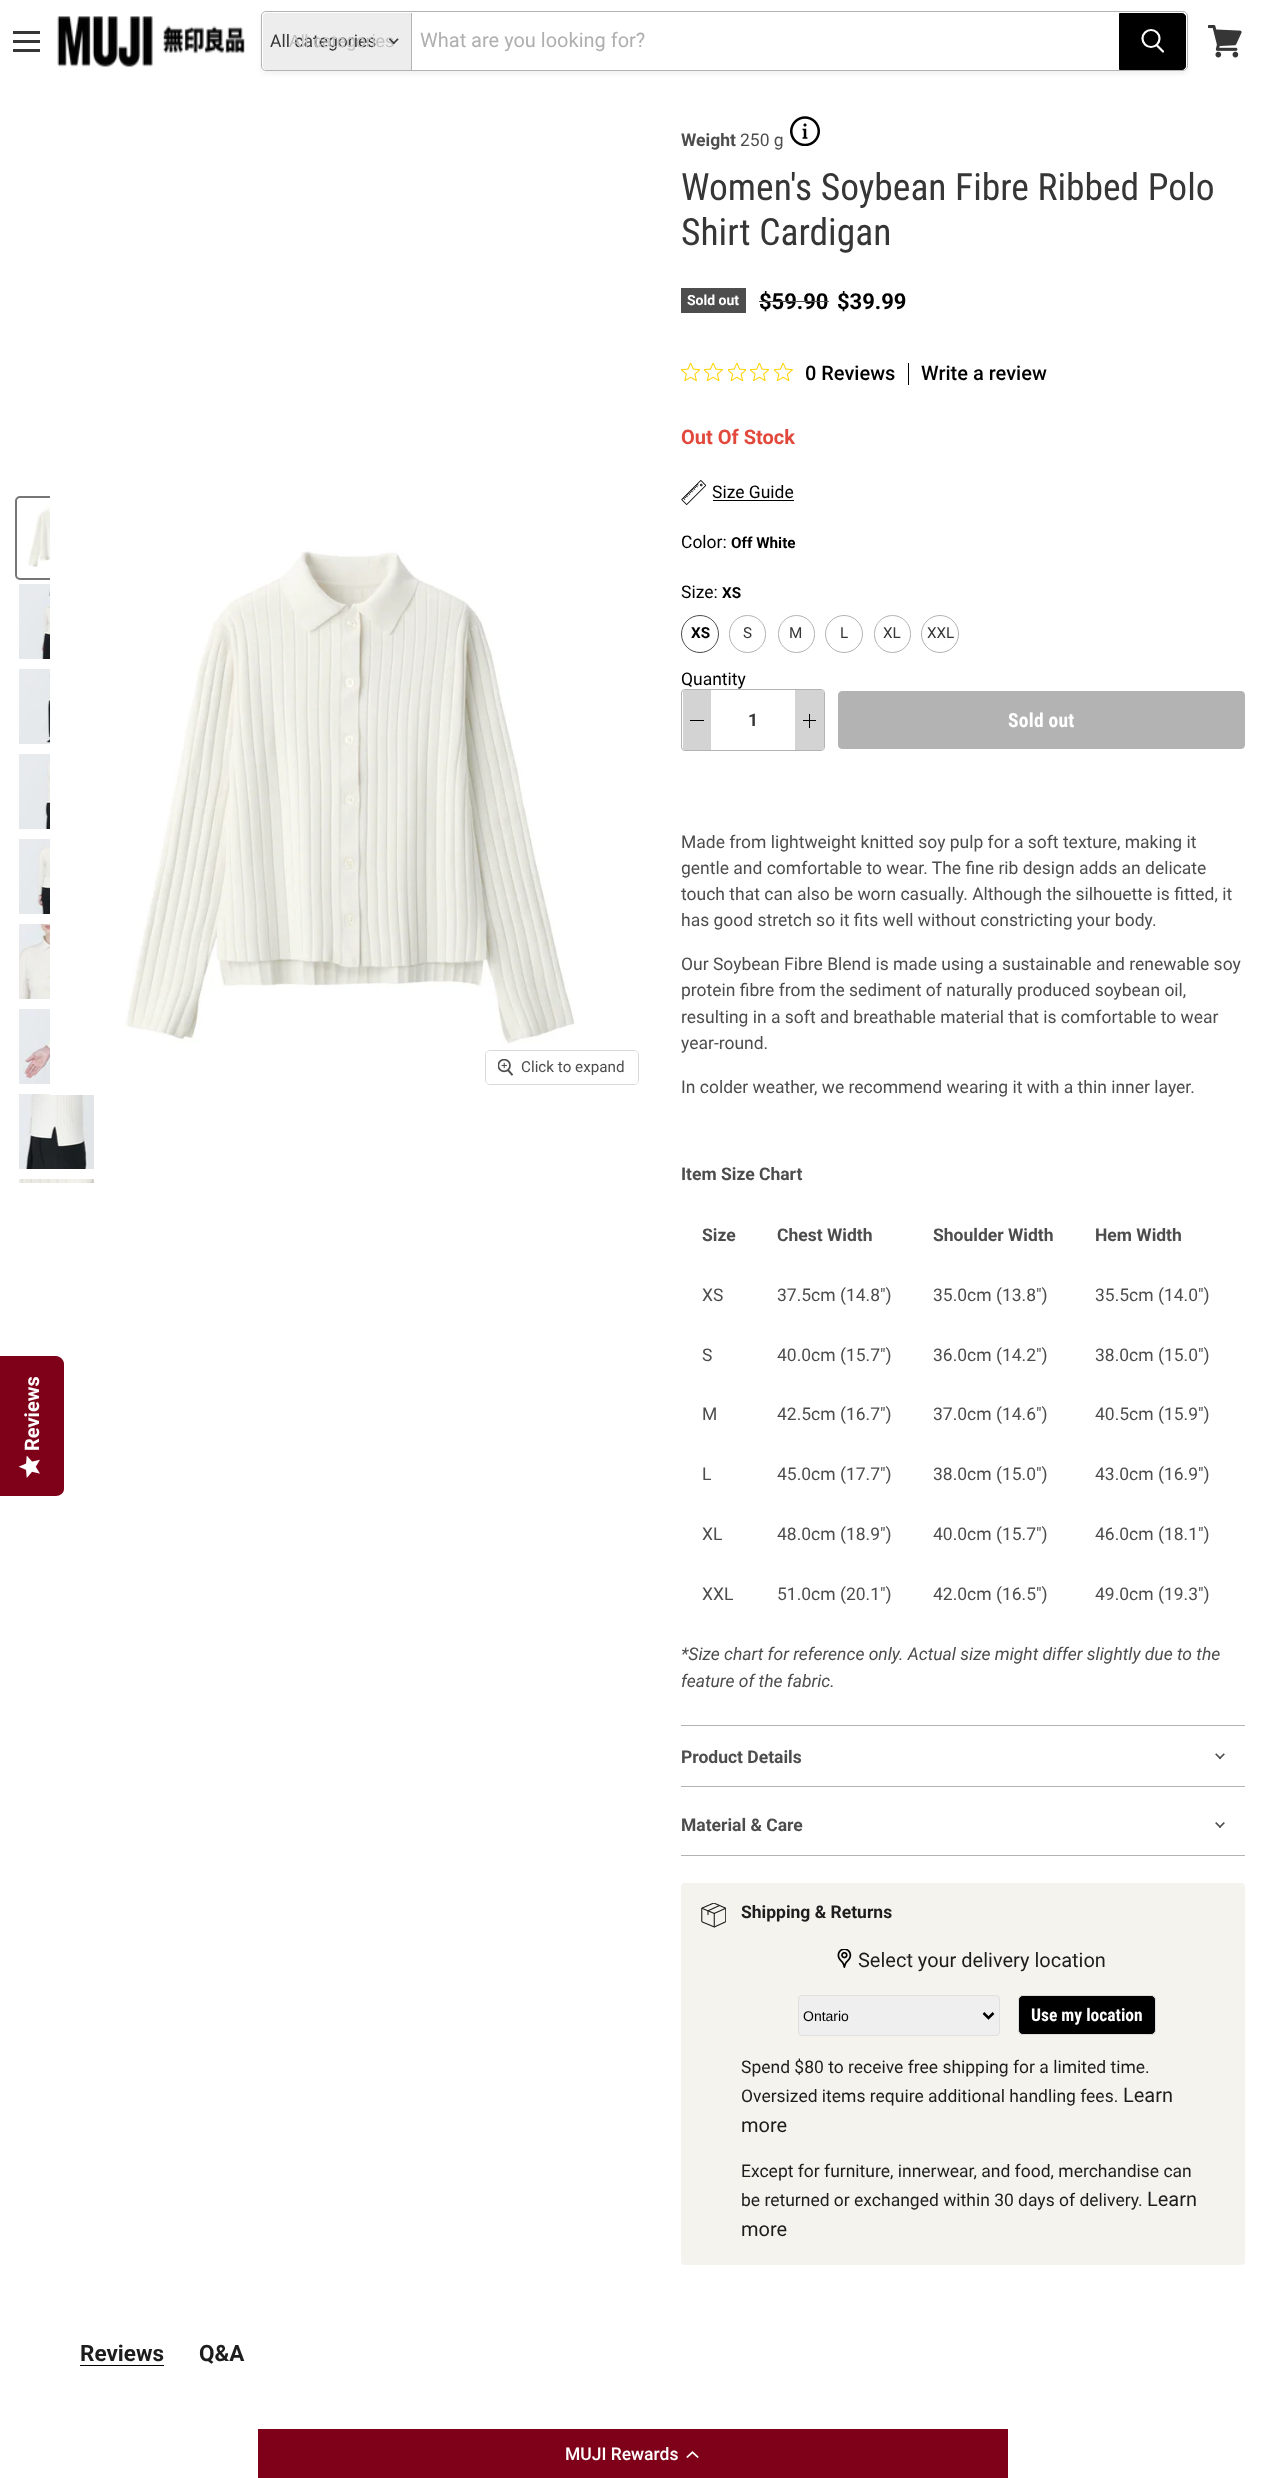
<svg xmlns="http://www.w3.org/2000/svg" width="1263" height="2478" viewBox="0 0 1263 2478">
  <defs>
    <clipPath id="clip1"><path d="M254 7H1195V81H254ZM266 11H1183C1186 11 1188 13 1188 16V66C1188 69 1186 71 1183 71H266C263 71 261 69 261 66V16C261 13 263 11 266 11Z" clip-rule="evenodd"/></clipPath>
    <filter id="blur1" x="-50%" y="-200%" width="200%" height="500%"><feGaussianBlur stdDeviation="2"/></filter>
  </defs>
  <rect width="100%" height="100%" fill="#ffffff"/>
  <rect x="13" y="31" width="27" height="3" fill="#363636"/>
  <rect x="13" y="40" width="27" height="3" fill="#363636"/>
  <rect x="13" y="49" width="27" height="3" fill="#363636"/>
  <image x="57" y="16" width="188" height="51" href="img1.png"/>
  <g clip-path="url(#clip1)">
    <rect x="261" y="14" width="927" height="60" rx="5" fill="#808080" fill-opacity="0.11" filter="url(#blur1)"/>
  </g>
  <rect x="261.5" y="11.5" width="926" height="59" rx="4.5" fill="none" stroke="#b3b3b3"/>
  <path d="M267 13H411V70H267C265 70 263 68 263 66V17C263 15 265 13 267 13Z" fill="#ededed"/>
  <text x="270" y="47" font-family="Roboto" font-size="17.5" fill="#363636">All categories</text>
  <text x="289" y="47" font-family="Liberation Sans" font-size="17.5" fill="#c0c0c0">All categories</text>
  <image x="389" y="38" width="10" height="7" href="img2.png"/>
  <rect x="411" y="13" width="1" height="57" fill="#b3b3b3"/>
  <text x="420" y="47" font-family="Roboto" font-size="20" fill="#afafaf">What are you looking for?</text>
  <path d="M1119.5 13.5H1182C1184 13.5 1185.5 15 1185.5 17V66C1185.5 68 1184 69.5 1182 69.5H1119.5Z" fill="#000000" stroke="#000000"/>
  <path d="M1163 51.5L1157 45.5" fill="none" stroke="#ffffff" stroke-width="2.2" stroke-linecap="round"/>
  <circle cx="1151" cy="38.5" r="8.5" fill="none" stroke="#ffffff" stroke-width="2.2"/>
  <image x="1208" y="25" width="34" height="33" href="img3.png"/>
  <path d="M0 1496V1356H56C60 1356 64 1360 64 1364V1489C64 1493 60 1496 56 1496Z" fill="#7f0019"/>
  <text x="39" y="1451" transform="rotate(-90 39 1451)" font-family="Roboto" font-size="20" font-weight="bold" fill="#ffffff">Reviews</text>
  <image x="18" y="1455" width="22" height="23" href="img4.png"/>
  <rect x="16" y="497" width="82" height="82" rx="4" fill="none" stroke="#767676" stroke-width="2"/>
  <image x="27" y="503" width="23" height="64" href="img5.png"/>
  <image x="19" y="584" width="31" height="75" href="img6.png"/>
  <image x="19" y="669" width="31" height="75" href="img7.png"/>
  <image x="19" y="754" width="31" height="75" href="img8.png"/>
  <image x="19" y="839" width="31" height="75" href="img9.png"/>
  <image x="19" y="924" width="31" height="75" href="img10.png"/>
  <image x="19" y="1009" width="31" height="75" href="img11.png"/>
  <image x="19" y="1094" width="75" height="75" href="img12.png"/>
  <image x="19" y="1179" width="75" height="4" href="img13.png"/>
  <image x="50" y="496" width="525" height="599" href="img14.png"/>
  <rect x="485.5" y="1050.5" width="153" height="34" rx="4.5" fill="none" stroke="#d9d9d9"/>
  <rect x="486" y="1051" width="152" height="33" rx="4" fill="#ffffff" fill-opacity="0.9"/>
  <image x="498" y="1059" width="16" height="17" href="img15.png"/>
  <text x="521" y="1072" font-family="Roboto" font-size="15.25" fill="#4d4d4d">Click to expand</text>
  <text x="681" y="146" font-family="Roboto" font-size="17.5" font-weight="bold" fill="#4d4d4d">Weight</text>
  <text x="740" y="146" font-family="Roboto" font-size="17.5" fill="#4d4d4d">250 g</text>
  <image x="790" y="116" width="30" height="30" href="img16.png"/>
  <text x="681" y="200" font-family="Roboto Condensed" font-size="37.5" fill="#363636">Women's Soybean Fibre Ribbed Polo</text>
  <text x="681" y="245" font-family="Roboto Condensed" font-size="37.5" fill="#363636">Shirt Cardigan</text>
  <rect x="681" y="288" width="65" height="25" fill="#4d4d4d"/>
  <text x="687" y="305" font-family="Roboto" font-size="14" font-weight="bold" fill="#ffffff">Sold out</text>
  <text x="759" y="309" font-family="Roboto" font-size="22" font-weight="bold" fill="#000000">$59.90</text>
  <rect x="759" y="301" width="70" height="1" fill="#525252"/>
  <text x="837" y="309" font-family="Roboto" font-size="22" font-weight="bold" fill="#000000">$39.99</text>
  <image x="681" y="363" width="19" height="18" href="img17.png"/>
  <image x="704" y="363" width="19" height="18" href="img18.png"/>
  <image x="728" y="363" width="18" height="18" href="img19.png"/>
  <image x="750" y="363" width="19" height="18" href="img20.png"/>
  <image x="774" y="363" width="19" height="18" href="img18.png"/>
  <text x="805" y="380" font-family="Roboto" font-size="20" font-weight="500" fill="#000000">0 Reviews</text>
  <rect x="908" y="363" width="1" height="22" fill="#000000"/>
  <text x="921" y="380" font-family="Roboto" font-size="20" font-weight="500" fill="#000000">Write a review</text>
  <text x="681" y="444" font-family="Roboto" font-size="20" font-weight="bold" fill="#e2483c">Out Of Stock</text>
  <image x="681" y="480" width="25" height="25" href="img21.png"/>
  <text x="712" y="498" font-family="Roboto" font-size="17.5" fill="#000000">Size Guide</text>
  <rect x="713" y="500" width="81" height="1" fill="#000000"/>
  <text x="681" y="548" font-family="Roboto" font-size="17.5" fill="#000000">Color:</text>
  <text x="731" y="548" font-family="Roboto" font-size="15.25" font-weight="bold" fill="#000000">Off White</text>
  <text x="681" y="598" font-family="Roboto" font-size="17.5" fill="#000000">Size:</text>
  <text x="722" y="598" font-family="Roboto" font-size="15.25" font-weight="bold" fill="#000000">XS</text>
  <circle cx="700" cy="634" r="18.5" fill="none" stroke="#4d4d4d"/>
  <text x="691" y="638" font-family="Roboto" font-size="15.25" font-weight="bold" fill="#000000">XS</text>
  <rect x="729.5" y="615.5" width="36" height="37" rx="18" fill="none" stroke="#b3b3b3"/>
  <text x="743" y="638" font-family="Roboto" font-size="15.25" fill="#363636">S</text>
  <rect x="778.5" y="615.5" width="36" height="37" rx="18" fill="none" stroke="#b3b3b3"/>
  <text x="789" y="638" font-family="Roboto" font-size="15.25" fill="#363636">M</text>
  <circle cx="844" cy="634" r="18.5" fill="none" stroke="#b3b3b3"/>
  <text x="840" y="638" font-family="Roboto" font-size="15.25" fill="#363636">L</text>
  <rect x="874.5" y="615.5" width="36" height="37" rx="18" fill="none" stroke="#b3b3b3"/>
  <text x="883" y="638" font-family="Roboto" font-size="15.25" fill="#363636">XL</text>
  <circle cx="940" cy="634" r="18.5" fill="none" stroke="#b3b3b3"/>
  <text x="927" y="638" font-family="Roboto" font-size="15.25" fill="#363636">XXL</text>
  <text x="681" y="685" font-family="Roboto" font-size="17.5" fill="#000000">Quantity</text>
  <rect x="681.5" y="689.5" width="143" height="61" rx="3.5" fill="none" stroke="#b3b3b3"/>
  <rect x="683" y="690" width="28" height="60" fill="#d3d3d3"/>
  <rect x="690" y="720" width="14" height="1" fill="#000000"/>
  <text x="748" y="726" font-family="Roboto" font-size="17.5" font-weight="bold" fill="#363636">1</text>
  <rect x="795" y="690" width="29" height="60" fill="#d3d3d3"/>
  <rect x="803" y="720" width="13" height="1" fill="#000000"/>
  <rect x="809" y="714" width="1" height="14" fill="#000000"/>
  <rect x="838.5" y="691.5" width="406" height="57" rx="3.5" fill="#b3b3b3" stroke="#b3b3b3"/>
  <text x="1008" y="727" font-family="Roboto Condensed" font-size="19.5" font-weight="bold" letter-spacing="0.25" fill="#ffffff">Sold out</text>
  <text x="681" y="848" font-family="Roboto" font-size="17.5" fill="#4d4d4d">Made from lightweight knitted soy pulp for a soft texture, making it</text>
  <text x="681" y="874" font-family="Roboto" font-size="17.5" fill="#4d4d4d">gentle and comfortable to wear. The fine rib design adds an delicate</text>
  <text x="681" y="900" font-family="Roboto" font-size="17.5" fill="#4d4d4d">touch that can also be worn casually. Although the silhouette is fitted, it</text>
  <text x="681" y="926" font-family="Roboto" font-size="17.5" fill="#4d4d4d">has good stretch so it fits well without constricting your body.</text>
  <text x="681" y="970" font-family="Roboto" font-size="17.5" fill="#4d4d4d">Our Soybean Fibre Blend is made using a sustainable and renewable soy</text>
  <text x="681" y="996" font-family="Roboto" font-size="17.5" fill="#4d4d4d">protein fibre from the sediment of naturally produced soybean oil,</text>
  <text x="681" y="1023" font-family="Roboto" font-size="17.5" fill="#4d4d4d">resulting in a soft and breathable material that is comfortable to wear</text>
  <text x="681" y="1049" font-family="Roboto" font-size="17.5" fill="#4d4d4d">year-round.</text>
  <text x="681" y="1093" font-family="Roboto" font-size="17.5" fill="#4d4d4d">In colder weather, we recommend wearing it with a thin inner layer.</text>
  <text x="681" y="1180" font-family="Roboto" font-size="17.5" font-weight="bold" fill="#4d4d4d">Item Size Chart</text>
  <text x="702" y="1241" font-family="Roboto" font-size="17.5" font-weight="bold" fill="#4d4d4d">Size</text>
  <text x="777" y="1241" font-family="Roboto" font-size="17.5" font-weight="bold" fill="#4d4d4d">Chest Width</text>
  <text x="933" y="1241" font-family="Roboto" font-size="17.5" font-weight="bold" fill="#4d4d4d">Shoulder Width</text>
  <text x="1095" y="1241" font-family="Roboto" font-size="17.5" font-weight="bold" fill="#4d4d4d">Hem Width</text>
  <text x="702" y="1301" font-family="Roboto" font-size="17.5" fill="#4d4d4d">XS</text>
  <text x="777" y="1301" font-family="Roboto" font-size="17.5" fill="#4d4d4d">37.5cm (14.8")</text>
  <text x="933" y="1301" font-family="Roboto" font-size="17.5" fill="#4d4d4d">35.0cm (13.8")</text>
  <text x="1095" y="1301" font-family="Roboto" font-size="17.5" fill="#4d4d4d">35.5cm (14.0")</text>
  <text x="702" y="1361" font-family="Roboto" font-size="17.5" fill="#4d4d4d">S</text>
  <text x="777" y="1361" font-family="Roboto" font-size="17.5" fill="#4d4d4d">40.0cm (15.7")</text>
  <text x="933" y="1361" font-family="Roboto" font-size="17.5" fill="#4d4d4d">36.0cm (14.2")</text>
  <text x="1095" y="1361" font-family="Roboto" font-size="17.5" fill="#4d4d4d">38.0cm (15.0")</text>
  <text x="702" y="1420" font-family="Roboto" font-size="17.5" fill="#4d4d4d">M</text>
  <text x="777" y="1420" font-family="Roboto" font-size="17.5" fill="#4d4d4d">42.5cm (16.7")</text>
  <text x="933" y="1420" font-family="Roboto" font-size="17.5" fill="#4d4d4d">37.0cm (14.6")</text>
  <text x="1095" y="1420" font-family="Roboto" font-size="17.5" fill="#4d4d4d">40.5cm (15.9")</text>
  <text x="702" y="1480" font-family="Roboto" font-size="17.5" fill="#4d4d4d">L</text>
  <text x="777" y="1480" font-family="Roboto" font-size="17.5" fill="#4d4d4d">45.0cm (17.7")</text>
  <text x="933" y="1480" font-family="Roboto" font-size="17.5" fill="#4d4d4d">38.0cm (15.0")</text>
  <text x="1095" y="1480" font-family="Roboto" font-size="17.5" fill="#4d4d4d">43.0cm (16.9")</text>
  <text x="702" y="1540" font-family="Roboto" font-size="17.5" fill="#4d4d4d">XL</text>
  <text x="777" y="1540" font-family="Roboto" font-size="17.5" fill="#4d4d4d">48.0cm (18.9")</text>
  <text x="933" y="1540" font-family="Roboto" font-size="17.5" fill="#4d4d4d">40.0cm (15.7")</text>
  <text x="1095" y="1540" font-family="Roboto" font-size="17.5" fill="#4d4d4d">46.0cm (18.1")</text>
  <text x="702" y="1600" font-family="Roboto" font-size="17.5" fill="#4d4d4d">XXL</text>
  <text x="777" y="1600" font-family="Roboto" font-size="17.5" fill="#4d4d4d">51.0cm (20.1")</text>
  <text x="933" y="1600" font-family="Roboto" font-size="17.5" fill="#4d4d4d">42.0cm (16.5")</text>
  <text x="1095" y="1600" font-family="Roboto" font-size="17.5" fill="#4d4d4d">49.0cm (19.3")</text>
  <text x="681" y="1660" font-family="Roboto" font-size="17.5" font-style="italic" fill="#4d4d4d">*Size chart for reference only. Actual size might differ slightly due to the</text>
  <text x="681" y="1687" font-family="Roboto" font-size="17.5" font-style="italic" fill="#4d4d4d">feature of the fabric.</text>
  <rect x="681" y="1725" width="564" height="1" fill="#b3b3b3"/>
  <rect x="681" y="1786" width="564" height="1" fill="#b3b3b3"/>
  <text x="681" y="1763" font-family="Roboto" font-size="17.5" font-weight="bold" fill="#4d4d4d">Product Details</text>
  <image x="1215" y="1753" width="10" height="7" href="img22.png"/>
  <rect x="681" y="1855" width="564" height="1" fill="#b3b3b3"/>
  <text x="681" y="1831" font-family="Roboto" font-size="17.5" font-weight="bold" fill="#4d4d4d">Material &amp; Care</text>
  <image x="1215" y="1822" width="10" height="6" href="img23.png"/>
  <rect x="681" y="1883" width="564" height="382" rx="4" fill="#f5f3ed"/>
  <image x="701" y="1903" width="25" height="25" href="img24.png"/>
  <text x="741" y="1918" font-family="Roboto" font-size="17.5" font-weight="bold" fill="#1d1d1d">Shipping &amp; Returns</text>
  <image x="837" y="1949" width="15" height="19" href="img25.png"/>
  <text x="858" y="1967" font-family="Roboto" font-size="20" fill="#1d1d1d">Select your delivery location</text>
  <rect x="798.5" y="1995.5" width="201" height="40" rx="3.5" fill="#efefef" stroke="#e0e0e0"/>
  <path d="M983.5 2013L988.5 2018L993.5 2013" fill="none" stroke="#000000" stroke-width="2.5"/>
  <text x="803" y="2021" font-family="Liberation Sans" font-size="14" fill="#000000">Ontario</text>
  <rect x="1018.5" y="1995.5" width="137" height="39" rx="4.5" fill="#000000" stroke="#dddddd"/>
  <text x="1031" y="2021" font-family="Roboto Condensed" font-size="17.5" font-weight="bold" fill="#ffffff">Use my location</text>
  <text x="741" y="2073" font-family="Roboto" font-size="17.5" fill="#1d1d1d">Spend $80 to receive free shipping for a limited time.</text>
  <text x="741" y="2102" font-family="Roboto" font-size="17.5" fill="#1d1d1d">Oversized items require additional handling fees.</text>
  <text x="1123" y="2102" font-family="Roboto" font-size="20" fill="#1d1d1d">Learn</text>
  <text x="741" y="2132" font-family="Roboto" font-size="20" fill="#1d1d1d">more</text>
  <text x="741" y="2177" font-family="Roboto" font-size="17.5" fill="#1d1d1d">Except for furniture, innerwear, and food, merchandise can</text>
  <text x="741" y="2206" font-family="Roboto" font-size="17.5" fill="#1d1d1d">be returned or exchanged within 30 days of delivery.</text>
  <text x="1147" y="2206" font-family="Roboto" font-size="20" fill="#1d1d1d">Learn</text>
  <text x="741" y="2236" font-family="Roboto" font-size="20" fill="#1d1d1d">more</text>
  <rect x="80" y="2365" width="84" height="1" fill="#000000"/>
  <text x="80" y="2361" font-family="Roboto" font-size="22.5" font-weight="bold" fill="#1d1d1d">Reviews</text>
  <text x="199" y="2361" font-family="Roboto" font-size="22.5" font-weight="bold" fill="#1d1d1d">Q&amp;A</text>
  <rect x="258" y="2429" width="750" height="49" fill="#7f0019"/>
  <text x="565" y="2460" font-family="Roboto" font-size="17.5" font-weight="500" fill="#ffffff">MUJI Rewards</text>
  <image x="686" y="2451" width="13" height="7" href="img26.png"/>
</svg>
